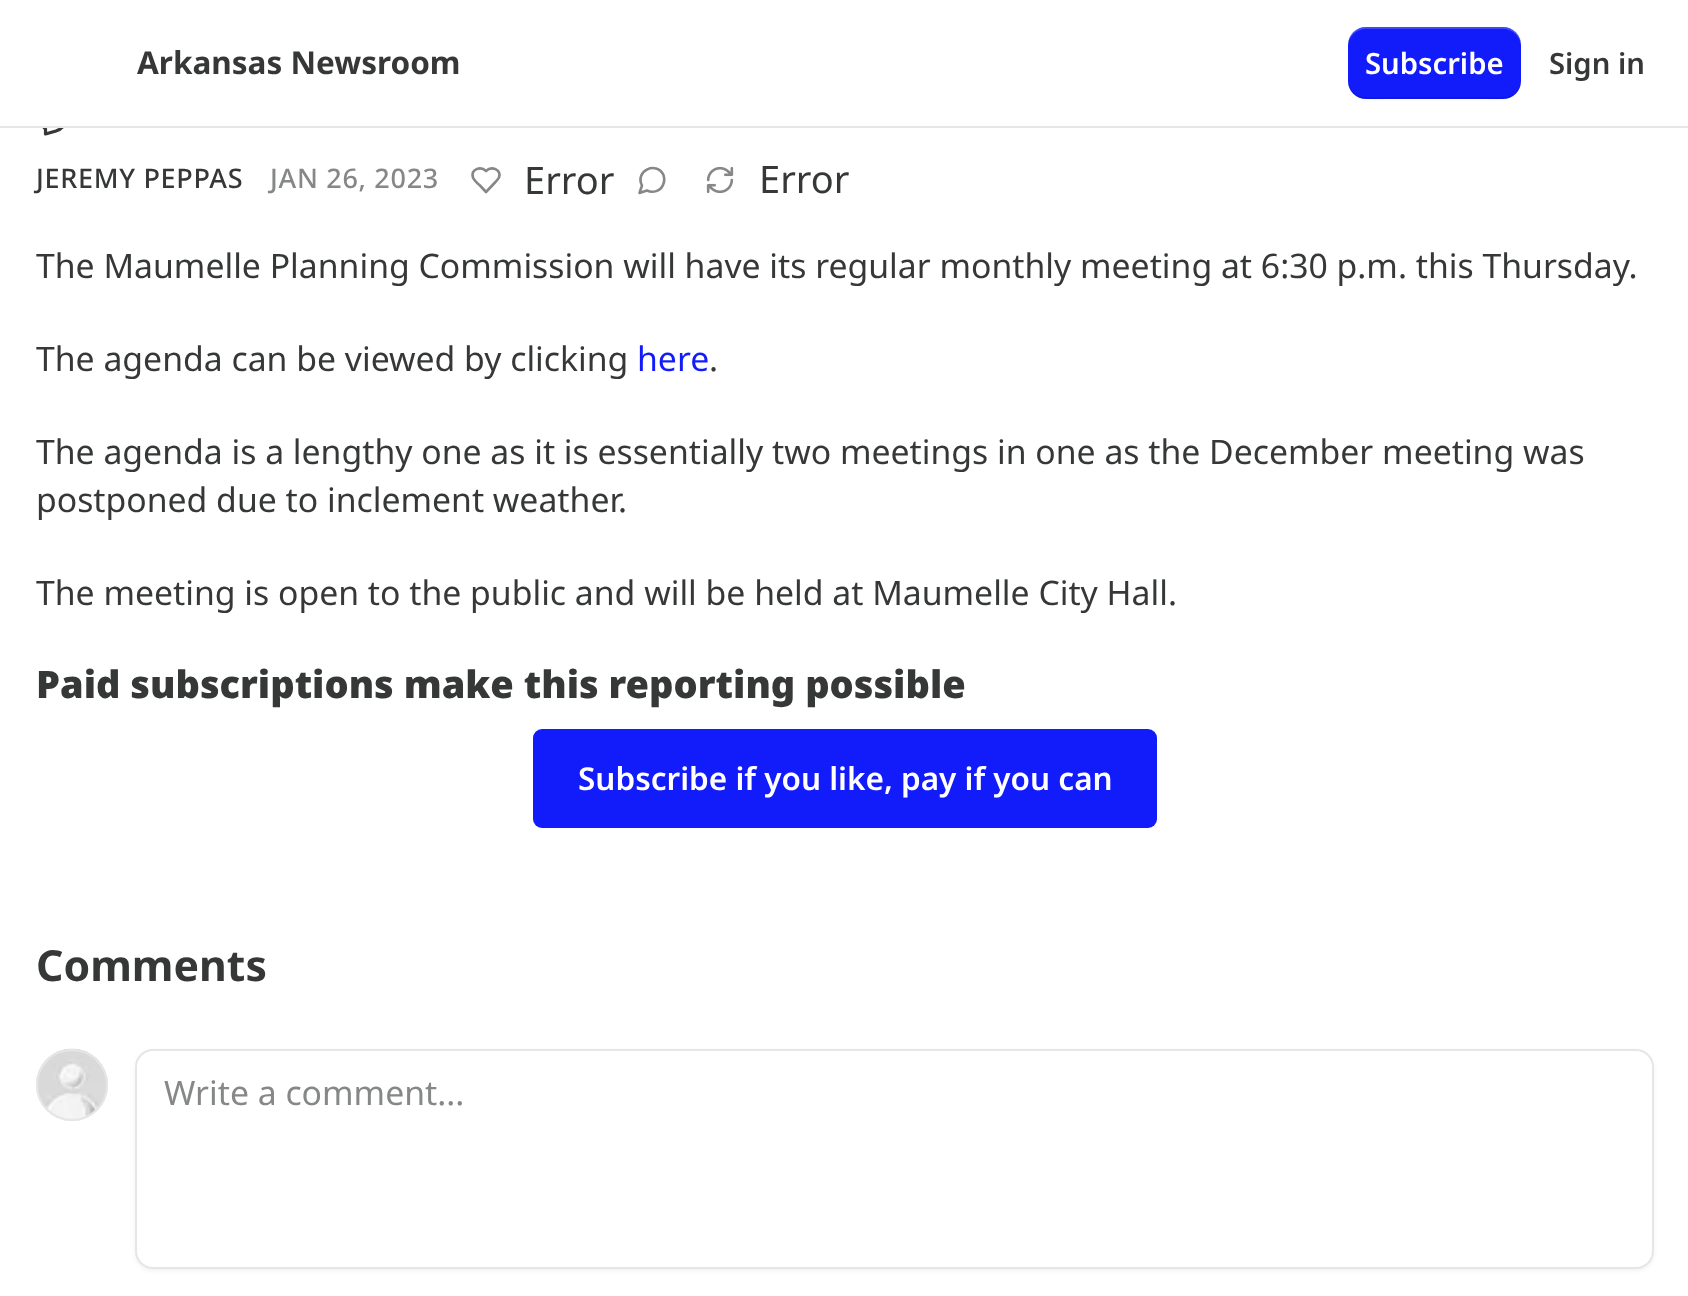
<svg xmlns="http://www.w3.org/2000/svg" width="1688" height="1296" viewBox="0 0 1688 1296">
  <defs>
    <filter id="blur1" x="-50%" y="-200%" width="200%" height="500%"><feGaussianBlur stdDeviation="2"/></filter>
  </defs>
  <rect width="100%" height="100%" fill="#ffffff"/>
  <path d="M54.5 111C52 111 49.5 111 47.5 112C39.5 115 40 124.5 45.5 129V134L56 131C62 129 64.5 125.5 64.5 121C64.5 115.5 60 111 54.5 111Z" fill="none" stroke="#363737" stroke-width="3.2" stroke-linejoin="round"/>
  <rect x="39" y="109" width="28" height="17" fill="#ffffff"/>
  <rect x="0" y="126" width="1688" height="2" fill="#e6e6e6"/>
  <text x="137" y="74" font-family="Noto Sans" font-size="31.5" font-weight="bold" fill="#363737">Arkansas Newsroom</text>
  <rect x="1348" y="27" width="173" height="72" rx="18" fill="#121bfa"/>
  <path d="M1348 79C1348 104 1371 99 1389 99H1480C1498 99 1521 104 1521 79C1521 89 1513 97 1503 97H1366C1356 97 1348 89 1348 79Z" fill="#000000" fill-opacity="0.1"/>
  <path d="M1366 29H1503C1513 29 1521 37 1521 47C1521 22 1498 27 1480 27H1389C1371 27 1348 22 1348 47C1348 37 1356 29 1366 29Z" fill="#ffffff" fill-opacity="0.2"/>
  <text x="1365" y="74" font-family="Noto Sans" font-size="29.25" font-weight="600" fill="#ffffff">Subscribe</text>
  <text x="1549" y="74" font-family="Noto Sans" font-size="29.25" font-weight="600" fill="#363737">Sign in</text>
  <text x="36" y="188" font-family="Noto Sans" font-size="27" font-weight="500" letter-spacing="0.7" fill="#363737">JEREMY PEPPAS</text>
  <text x="270" y="188" font-family="Noto Sans" font-size="27" font-weight="500" letter-spacing="0.7" fill="#868787">JAN 26, 2023</text>
  <path d="M495 182.5C496.5 181 498 179.5 499 177.5C501.5 169.5 491.5 165.5 486 171C480.5 165.5 470.5 169.5 473 177.5C474.5 181 477.5 183.5 480 185.5L486 192Z" fill="none" stroke="#868787" stroke-width="2.6" stroke-linecap="round" stroke-linejoin="round"/>
  <text x="524" y="194" font-family="Noto Sans" font-size="38" fill="#363737">Error</text>
  <path d="M647 190.5C653 193.5 660.5 191 663 185C664.5 182 664.5 178.5 663.5 175C656.5 160.5 634.5 171 642 185.5L639.5 193Z" fill="none" stroke="#868787" stroke-width="2.6" stroke-linecap="round" stroke-linejoin="round"/>
  <image x="706" y="166" width="28" height="28" href="img1.png"/>
  <text x="759" y="193" font-family="Noto Sans" font-size="38" fill="#363737">Error</text>
  <text x="36" y="278" font-family="Noto Sans" font-size="33.75" fill="#363737">The Maumelle Planning Commission will have its regular monthly meeting at 6:30 p.m. this Thursday.</text>
  <text x="36" y="371" font-family="Noto Sans" font-size="33.75" fill="#363737">The agenda can be viewed by clicking</text>
  <text x="637" y="371" font-family="Noto Sans" font-size="33.75" fill="#121bfa">here</text>
  <text x="709" y="371" font-family="Noto Sans" font-size="33.75" fill="#363737">.</text>
  <text x="36" y="464" font-family="Noto Sans" font-size="33.75" fill="#363737">The agenda is a lengthy one as it is essentially two meetings in one as the December meeting was</text>
  <text x="36" y="512" font-family="Noto Sans" font-size="33.75" fill="#363737">postponed due to inclement weather.</text>
  <text x="36" y="605" font-family="Noto Sans" font-size="33.75" fill="#363737">The meeting is open to the public and will be held at Maumelle City Hall.</text>
  <text x="36" y="698" font-family="Noto Sans" font-size="38" font-weight="900" fill="#363737">Paid subscriptions make this reporting possible</text>
  <rect x="533" y="729" width="624" height="99" rx="9" fill="#121bfa"/>
  <text x="578" y="790" font-family="Noto Sans" font-size="31.5" font-weight="600" fill="#ffffff">Subscribe if you like, pay if you can</text>
  <text x="36" y="981" font-family="Noto Sans" font-size="42.75" font-weight="bold" fill="#363737">Comments</text>
  <circle cx="72" cy="1085" r="35" fill="none" stroke="#e6e6e6" stroke-width="2"/>
  <image x="36" y="1048" width="72" height="71" href="img2.png"/>
  <circle cx="72" cy="1085" r="35" fill="none" stroke="#e6e6e6" stroke-width="2"/>
  <rect x="135" y="1051" width="1519" height="220" rx="18" fill="#000000" fill-opacity="0.05" filter="url(#blur1)"/>
  <rect x="136" y="1050" width="1517" height="218" rx="17" fill="#ffffff" stroke="#e6e6e6" stroke-width="2"/>
  <text x="164" y="1105" font-family="Noto Sans" font-size="33.75" fill="#868787">Write a comment...</text>
</svg>
